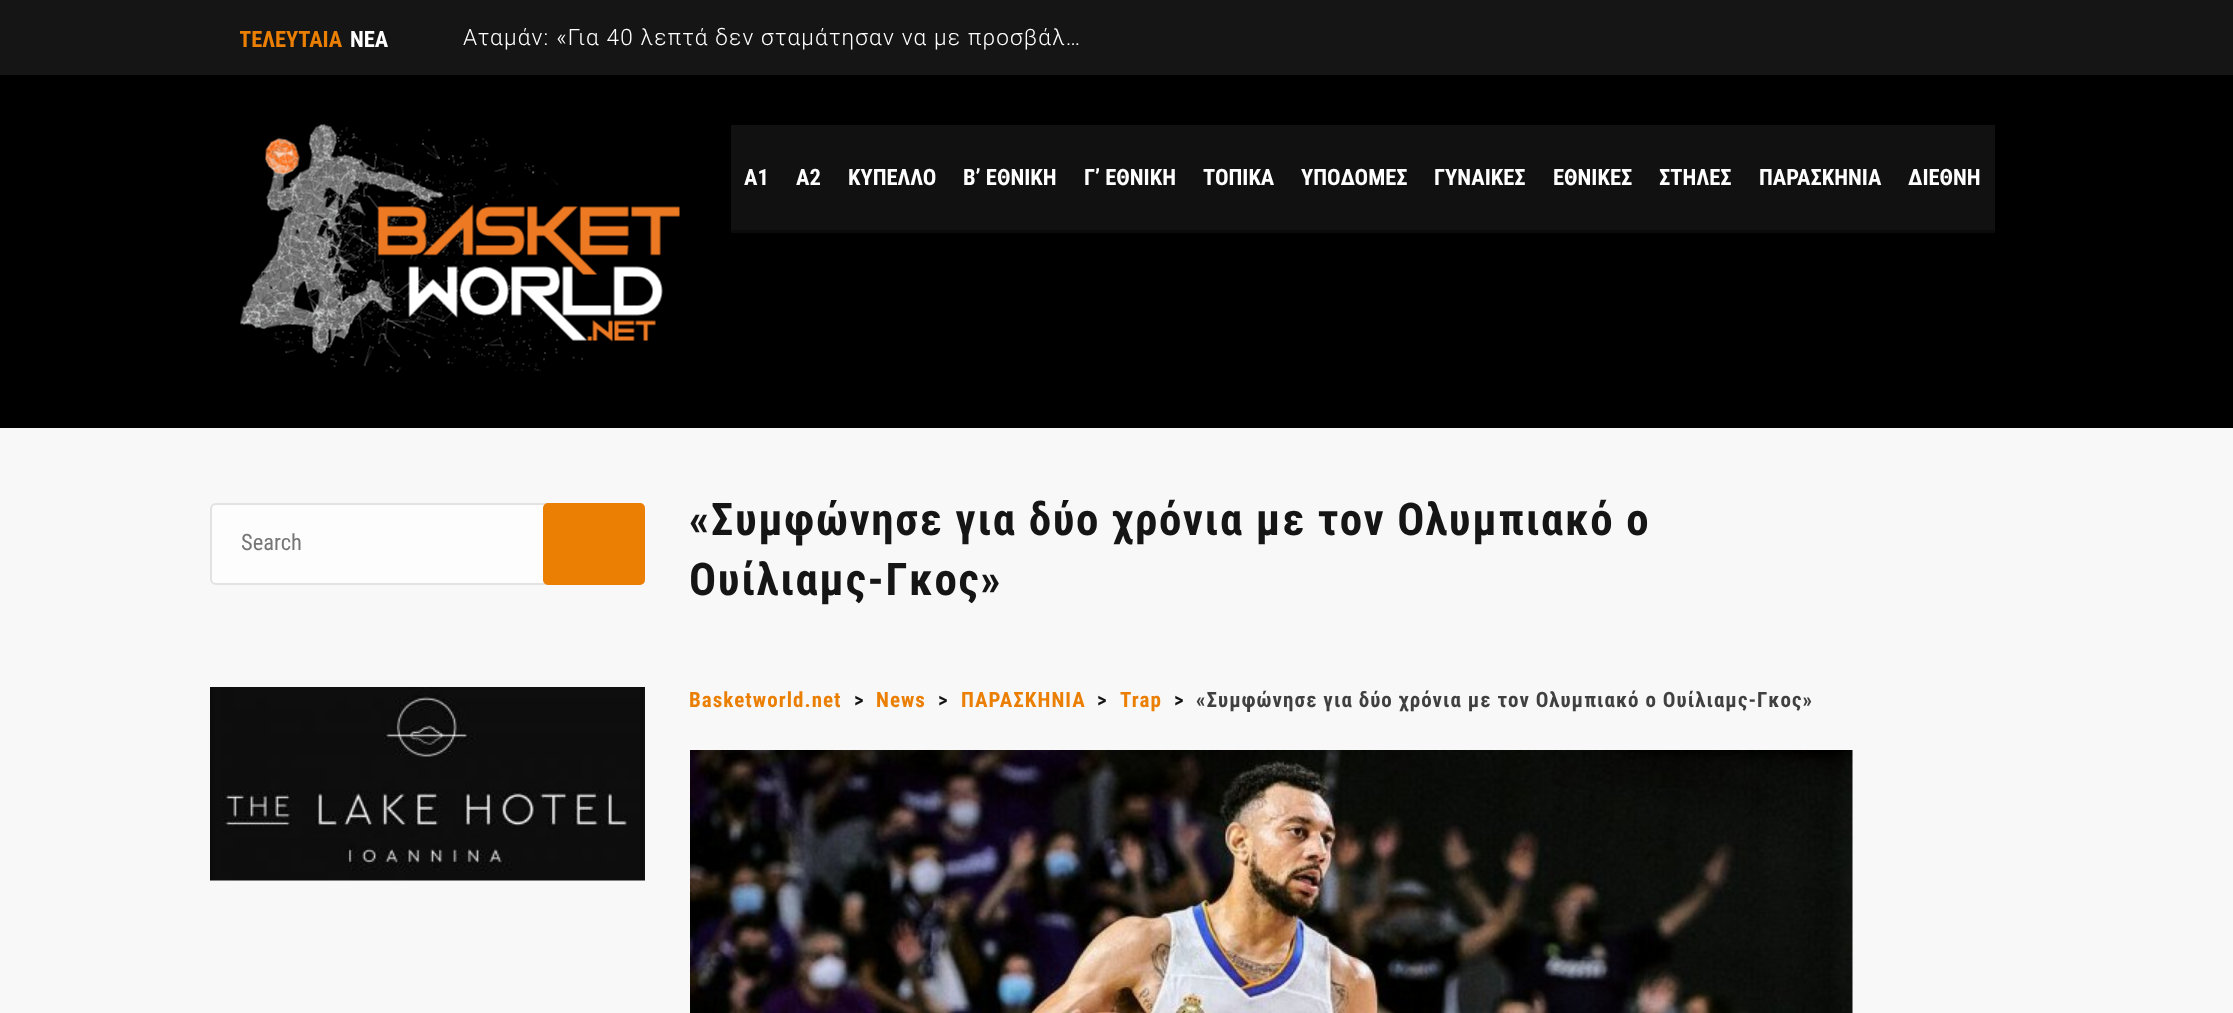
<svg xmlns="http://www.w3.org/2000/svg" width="2233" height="1013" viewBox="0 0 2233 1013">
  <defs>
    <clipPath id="clip1"><rect x="240" y="0" width="855" height="75"/></clipPath>
  </defs>
  <rect width="100%" height="100%" fill="#f8f8f8"/>
  <rect x="0" y="0" width="2233" height="75" fill="#151515"/>
  <g clip-path="url(#clip1)">
    <text x="239" y="47" font-family="Roboto Condensed" font-size="22.5" font-weight="bold" fill="#ea7f04">ΤΕΛΕΥΤΑΙΑ</text>
  </g>
  <text x="350" y="47" font-family="Roboto Condensed" font-size="22.5" font-weight="bold" fill="#ffffff">ΝΕΑ</text>
  <text x="463" y="45" font-family="Roboto" font-size="22.5" font-weight="300" letter-spacing="1.2" fill="#ffffff">Αταμάν: «Για 40 λεπτά δεν σταμάτησαν να με προσβάλ…</text>
  <rect x="0" y="75" width="2233" height="353" fill="#000000"/>
  <image x="240" y="124" width="440" height="249" href="img1.png"/>
  <rect x="731" y="125" width="1264" height="105" fill="#111111"/>
  <text x="744" y="185" font-family="Roboto Condensed" font-size="22.5" font-weight="bold" fill="#ffffff">Α1</text>
  <text x="796" y="185" font-family="Roboto Condensed" font-size="22.5" font-weight="bold" fill="#ffffff">Α2</text>
  <text x="848" y="185" font-family="Roboto Condensed" font-size="22.5" font-weight="bold" fill="#ffffff">ΚΥΠΕΛΛΟ</text>
  <text x="963" y="185" font-family="Roboto Condensed" font-size="22.5" font-weight="bold" fill="#ffffff">Β’ ΕΘΝΙΚΗ</text>
  <text x="1084" y="185" font-family="Roboto Condensed" font-size="22.5" font-weight="bold" fill="#ffffff">Γ’ ΕΘΝΙΚΗ</text>
  <text x="1203" y="185" font-family="Roboto Condensed" font-size="22.5" font-weight="bold" fill="#ffffff">ΤΟΠΙΚΑ</text>
  <text x="1301" y="185" font-family="Roboto Condensed" font-size="22.5" font-weight="bold" fill="#ffffff">ΥΠΟΔΟΜΕΣ</text>
  <text x="1434" y="185" font-family="Roboto Condensed" font-size="22.5" font-weight="bold" fill="#ffffff">ΓΥΝΑΙΚΕΣ</text>
  <text x="1553" y="185" font-family="Roboto Condensed" font-size="22.5" font-weight="bold" fill="#ffffff">ΕΘΝΙΚΕΣ</text>
  <text x="1659" y="185" font-family="Roboto Condensed" font-size="22.5" font-weight="bold" fill="#ffffff">ΣΤΗΛΕΣ</text>
  <text x="1759" y="185" font-family="Roboto Condensed" font-size="22.5" font-weight="bold" fill="#ffffff">ΠΑΡΑΣΚΗΝΙΑ</text>
  <text x="1908" y="185" font-family="Roboto Condensed" font-size="22.5" font-weight="bold" fill="#ffffff">ΔΙΕΘΝΗ</text>
  <rect x="731" y="230" width="1264" height="3" fill="#0b0b0b"/>
  <rect x="211" y="504" width="433" height="80" rx="5" fill="#fdfdfd" stroke="#e2e2e2" stroke-width="2"/>
  <text x="241" y="550" font-family="Roboto Condensed" font-size="22.5" fill="#757575">Search</text>
  <rect x="544.5" y="504.5" width="99" height="79" rx="3.5" fill="none" stroke="#ea7f04" stroke-width="3"/>
  <rect x="546" y="506" width="96" height="76" fill="#ea7f04"/>
  <image x="210" y="687" width="435" height="194" href="img2.png"/>
  <text x="689" y="535" font-family="Roboto Condensed" font-size="45" font-weight="bold" letter-spacing="1.65" fill="#151515">«Συμφώνησε για δύο χρόνια με τον Ολυμπιακό ο</text>
  <text x="689" y="595" font-family="Roboto Condensed" font-size="45" font-weight="bold" letter-spacing="1.65" fill="#151515">Ουίλιαμς-Γκος»</text>
  <text x="689" y="707" font-family="Roboto Condensed" font-size="21" font-weight="bold" letter-spacing="1.05" fill="#ea7f04">Basketworld.net</text>
  <text x="854" y="707" font-family="Roboto Condensed" font-size="21" font-weight="bold" letter-spacing="1.05" fill="#151515">&gt;</text>
  <text x="876" y="707" font-family="Roboto Condensed" font-size="21" font-weight="bold" letter-spacing="1.05" fill="#ea7f04">News</text>
  <text x="938" y="707" font-family="Roboto Condensed" font-size="21" font-weight="bold" letter-spacing="1.05" fill="#151515">&gt;</text>
  <text x="961" y="707" font-family="Roboto Condensed" font-size="21" font-weight="bold" letter-spacing="1.05" fill="#ea7f04">ΠΑΡΑΣΚΗΝΙΑ</text>
  <text x="1097" y="707" font-family="Roboto Condensed" font-size="21" font-weight="bold" letter-spacing="1.05" fill="#151515">&gt;</text>
  <text x="1120" y="707" font-family="Roboto Condensed" font-size="21" font-weight="bold" letter-spacing="1.05" fill="#ea7f04">Trap</text>
  <text x="1174" y="707" font-family="Roboto Condensed" font-size="21" font-weight="bold" letter-spacing="1.05" fill="#151515">&gt;</text>
  <text x="1196" y="707" font-family="Roboto Condensed" font-size="21" font-weight="bold" letter-spacing="1.05" fill="#404040">«Συμφώνησε για δύο χρόνια με τον Ολυμπιακό ο Ουίλιαμς-Γκος»</text>
  <image x="690" y="750" width="1163" height="263" href="img3.png"/>
</svg>
